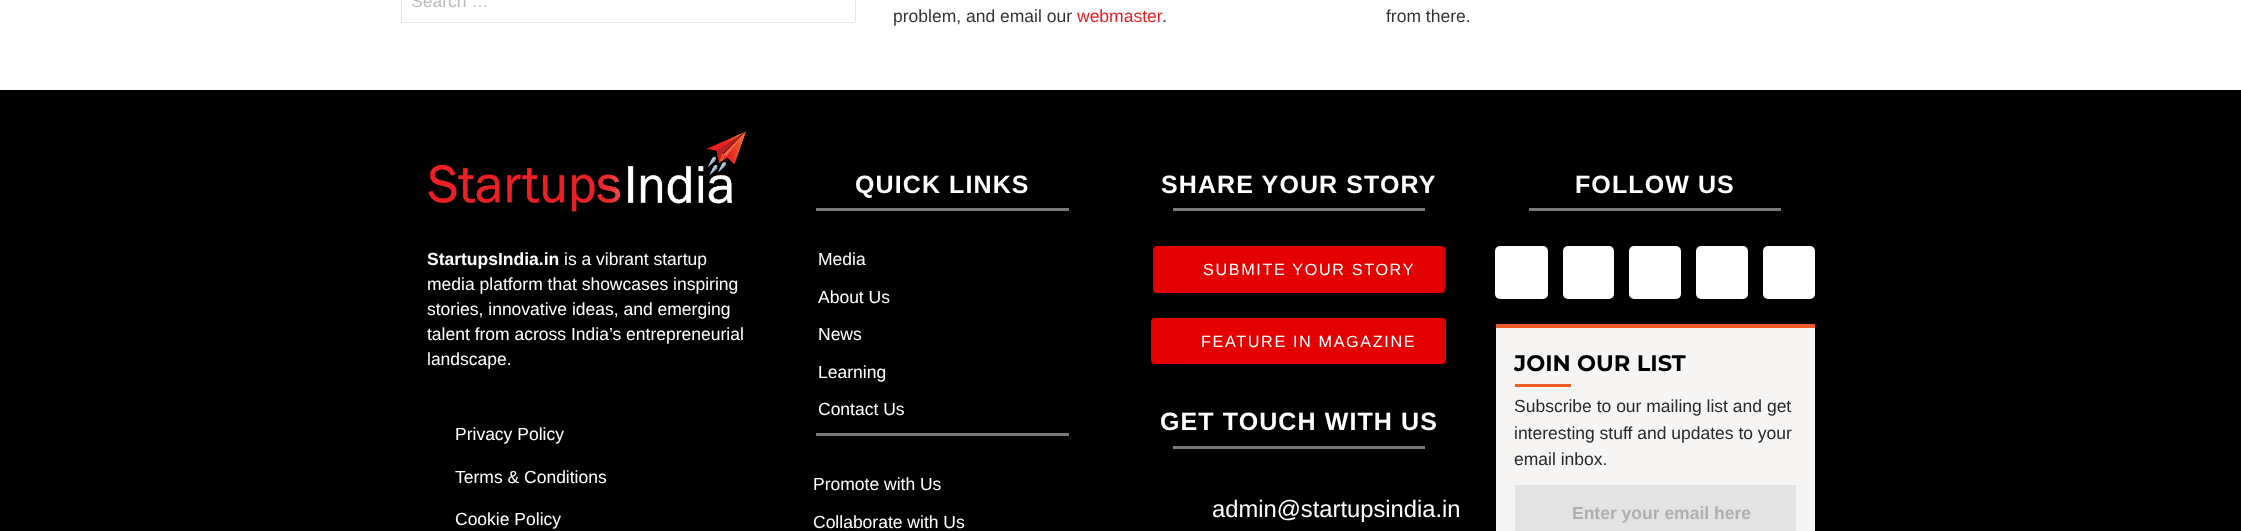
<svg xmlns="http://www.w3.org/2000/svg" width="2241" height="531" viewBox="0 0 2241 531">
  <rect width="100%" height="100%" fill="#ffffff"/>
  <rect x="401.5" y="-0.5" width="454" height="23" fill="none" stroke="#e6e6e6"/>
  <text x="411" y="7" font-family="Liberation Sans" font-size="17.5" fill="#bcbcbc">Search …</text>
  <text x="893" y="22" font-family="Liberation Sans" font-size="17.5" fill="#333333">problem, and email our</text>
  <text x="1077" y="22" font-family="Liberation Sans" font-size="17.5" fill="#ea2124">webmaster</text>
  <text x="1162" y="22" font-family="Liberation Sans" font-size="17.5" fill="#333333">.</text>
  <text x="1386" y="22" font-family="Liberation Sans" font-size="17.5" fill="#333333">from there.</text>
  <rect x="0" y="90" width="2241" height="441" fill="#000000"/>
  <image x="428" y="131" width="319" height="81" href="img1.png"/>
  <text x="427" y="265" font-family="Liberation Sans" font-size="17.5" font-weight="bold" fill="#ffffff">StartupsIndia.in</text>
  <text x="564" y="265" font-family="Liberation Sans" font-size="17.5" fill="#ffffff">is a vibrant startup</text>
  <text x="427" y="290" font-family="Liberation Sans" font-size="17.5" fill="#ffffff">media platform that showcases inspiring</text>
  <text x="427" y="315" font-family="Liberation Sans" font-size="17.5" fill="#ffffff">stories, innovative ideas, and emerging</text>
  <text x="427" y="340" font-family="Liberation Sans" font-size="17.5" fill="#ffffff">talent from across India’s entrepreneurial</text>
  <text x="427" y="365" font-family="Liberation Sans" font-size="17.5" fill="#ffffff">landscape.</text>
  <text x="455" y="440" font-family="Liberation Sans" font-size="17.5" fill="#ffffff">Privacy Policy</text>
  <text x="455" y="483" font-family="Liberation Sans" font-size="17.5" fill="#ffffff">Terms &amp; Conditions</text>
  <text x="455" y="525" font-family="Liberation Sans" font-size="17.5" fill="#ffffff">Cookie Policy</text>
  <text x="855" y="193" font-family="Liberation Sans" font-size="25" font-weight="bold" letter-spacing="1.1" fill="#ffffff">QUICK LINKS</text>
  <rect x="816" y="208" width="253" height="3" fill="#7a7a7a"/>
  <text x="818" y="265" font-family="Liberation Sans" font-size="17.5" fill="#ffffff">Media</text>
  <text x="818" y="303" font-family="Liberation Sans" font-size="17.5" fill="#ffffff">About Us</text>
  <text x="818" y="340" font-family="Liberation Sans" font-size="17.5" fill="#ffffff">News</text>
  <text x="818" y="378" font-family="Liberation Sans" font-size="17.5" fill="#ffffff">Learning</text>
  <text x="818" y="415" font-family="Liberation Sans" font-size="17.5" fill="#ffffff">Contact Us</text>
  <rect x="816" y="433" width="253" height="3" fill="#7a7a7a"/>
  <text x="813" y="490" font-family="Liberation Sans" font-size="17.5" fill="#ffffff">Promote with Us</text>
  <text x="813" y="528" font-family="Liberation Sans" font-size="17.5" fill="#ffffff">Collaborate with Us</text>
  <text x="1161" y="193" font-family="Liberation Sans" font-size="25" font-weight="bold" letter-spacing="1.1" fill="#ffffff">SHARE YOUR STORY</text>
  <rect x="1173" y="208" width="252" height="3" fill="#7a7a7a"/>
  <rect x="1153" y="246" width="292" height="47" rx="4" fill="#e40000"/>
  <text x="1203" y="275" font-family="Liberation Sans" font-size="16.25" letter-spacing="1.6" fill="#ffffff">SUBMITE YOUR STORY</text>
  <rect x="1151" y="318" width="295" height="46" rx="4" fill="#e40000"/>
  <text x="1201" y="347" font-family="Liberation Sans" font-size="16.25" letter-spacing="1.6" fill="#ffffff">FEATURE IN MAGAZINE</text>
  <text x="1160" y="430" font-family="Liberation Sans" font-size="25" font-weight="bold" letter-spacing="1.1" fill="#ffffff">GET TOUCH WITH US</text>
  <rect x="1173" y="446" width="252" height="3" fill="#7a7a7a"/>
  <text x="1212" y="517" font-family="Liberation Sans" font-size="23.75" fill="#ffffff">admin@startupsindia.in</text>
  <text x="1575" y="193" font-family="Liberation Sans" font-size="25" font-weight="bold" letter-spacing="1.1" fill="#ffffff">FOLLOW US</text>
  <rect x="1529" y="208" width="252" height="3" fill="#7a7a7a"/>
  <rect x="1495" y="246" width="53" height="53" rx="5" fill="#ffffff"/>
  <rect x="1563" y="246" width="51" height="53" rx="5" fill="#ffffff"/>
  <rect x="1629" y="246" width="52" height="53" rx="5" fill="#ffffff"/>
  <rect x="1696" y="246" width="52" height="53" rx="5" fill="#ffffff"/>
  <rect x="1763" y="246" width="52" height="53" rx="5" fill="#ffffff"/>
  <rect x="1496" y="328" width="319" height="203" fill="#f6f5f4"/>
  <rect x="1496" y="324" width="319" height="4" fill="#f05a28"/>
  <text x="1514" y="371" font-family="Montserrat" font-size="22.5" font-weight="bold" fill="#000000">JOIN OUR LIST</text>
  <rect x="1515" y="384" width="56" height="3" fill="#f05a28"/>
  <text x="1514" y="412" font-family="Liberation Sans" font-size="17.5" fill="#282828">Subscribe to our mailing list and get</text>
  <text x="1514" y="439" font-family="Liberation Sans" font-size="17.5" fill="#282828">interesting stuff and updates to your</text>
  <text x="1514" y="465" font-family="Liberation Sans" font-size="17.5" fill="#282828">email inbox.</text>
  <rect x="1515" y="485" width="281" height="46" fill="#e3e3e3"/>
  <text x="1572" y="519" font-family="Liberation Sans" font-size="17.5" font-weight="bold" fill="#afafaf">Enter your email here</text>
</svg>
